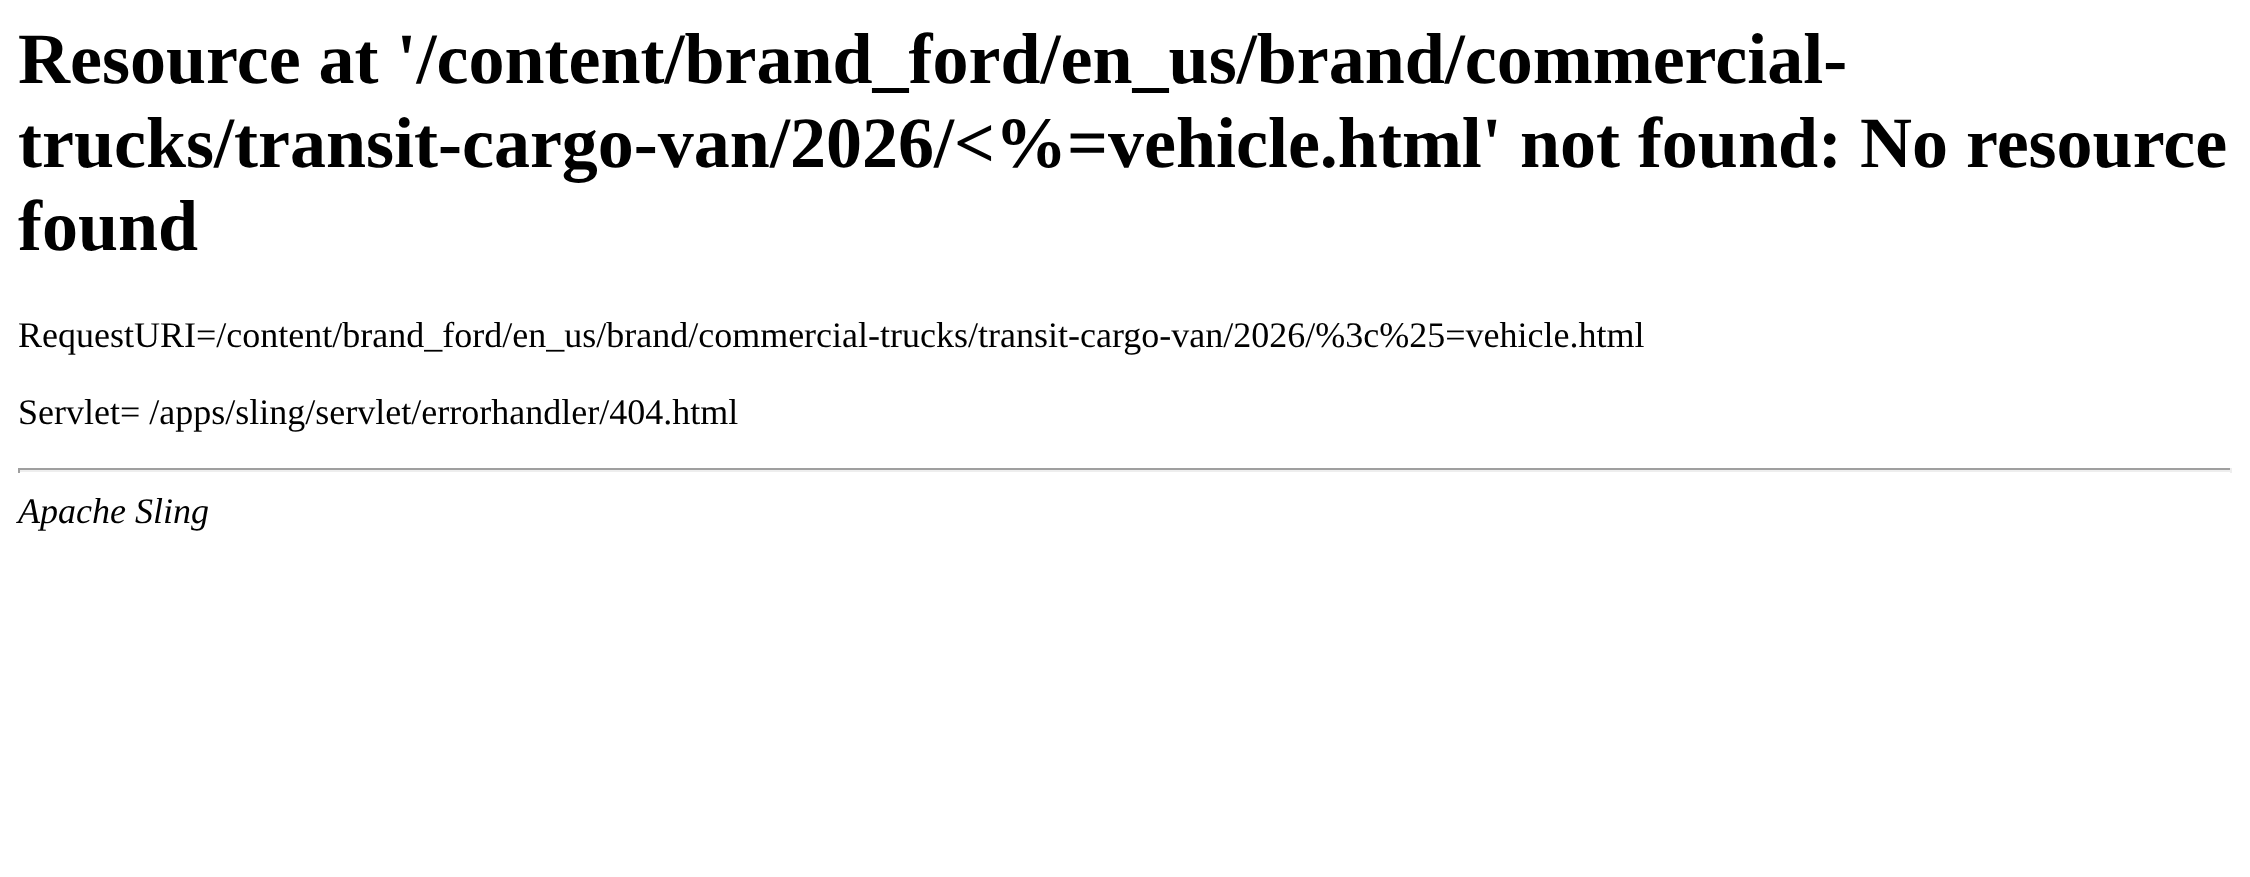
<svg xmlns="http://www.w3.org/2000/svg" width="2250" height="877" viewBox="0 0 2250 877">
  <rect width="100%" height="100%" fill="#ffffff"/>
  <text x="18" y="83" font-family="Liberation Serif" font-size="72" font-weight="bold" fill="#000000">Resource at '/content/brand_ford/en_us/brand/commercial-</text>
  <text x="18" y="167" font-family="Liberation Serif" font-size="72" font-weight="bold" fill="#000000">trucks/transit-cargo-van/2026/&lt;%=vehicle.html' not found: No resource</text>
  <text x="18" y="250" font-family="Liberation Serif" font-size="72" font-weight="bold" fill="#000000">found</text>
  <text x="18" y="347" font-family="Liberation Serif" font-size="36" fill="#000000">RequestURI=/content/brand_ford/en_us/brand/commercial-trucks/transit-cargo-van/2026/%3c%25=vehicle.html</text>
  <text x="18" y="424" font-family="Liberation Serif" font-size="36" fill="#000000">Servlet= /apps/sling/servlet/errorhandler/404.html</text>
  <rect x="18" y="468" width="2214" height="2" fill="#9f9f9f"/>
  <rect x="2230" y="468" width="2" height="5" fill="#eeeeee"/>
  <rect x="18" y="470" width="2214" height="2" fill="#eeeeee"/>
  <rect x="18" y="468" width="2" height="5" fill="#9f9f9f"/>
  <text x="18" y="523" font-family="Liberation Serif" font-size="36" font-style="italic" fill="#000000">Apache Sling</text>
</svg>
